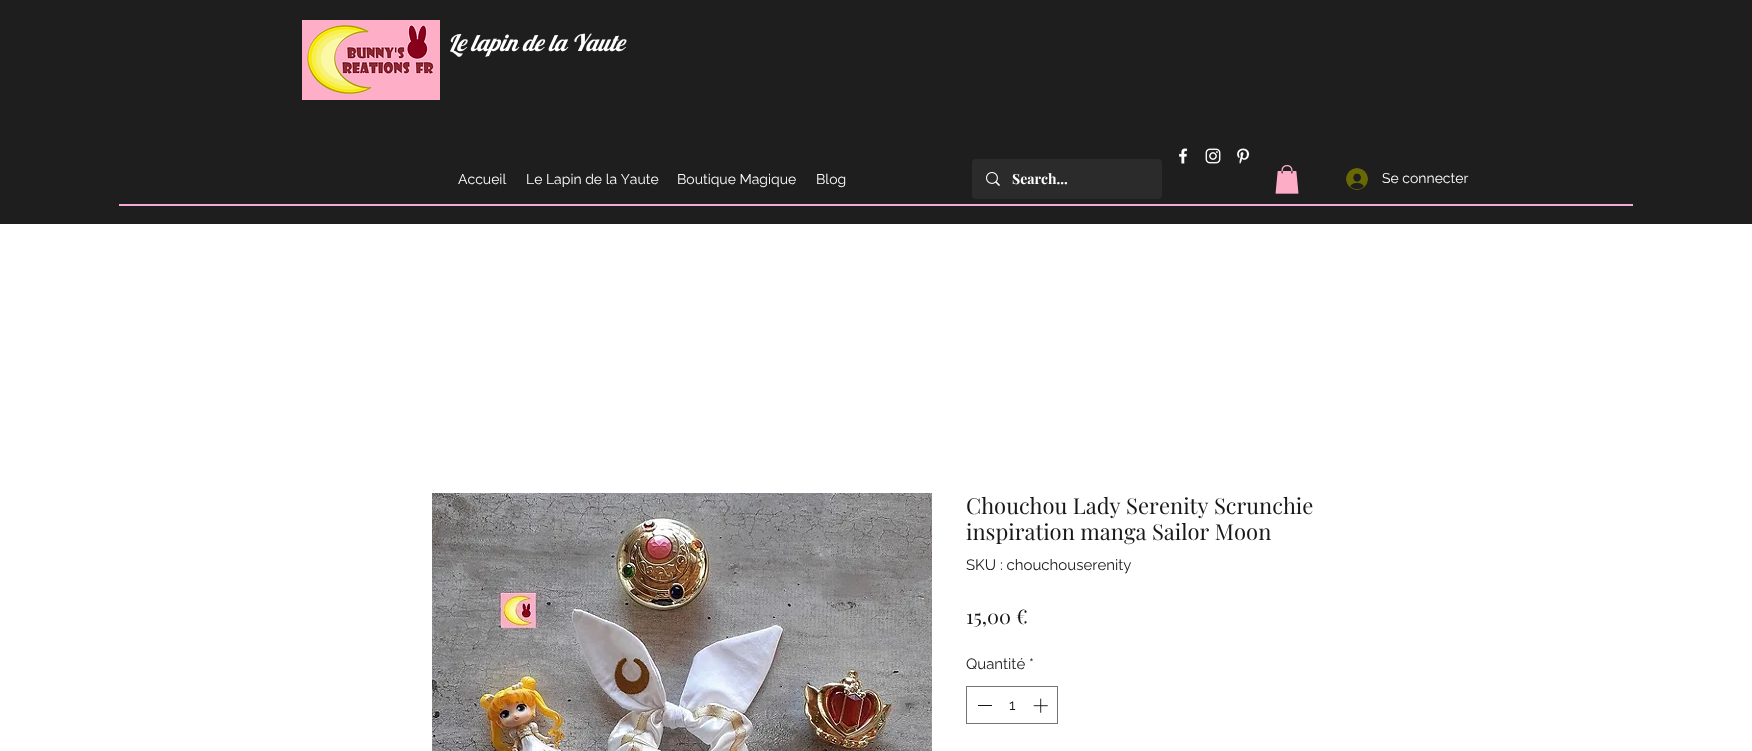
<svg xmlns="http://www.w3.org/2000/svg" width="1752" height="751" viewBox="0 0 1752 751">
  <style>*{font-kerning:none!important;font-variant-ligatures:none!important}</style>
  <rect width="100%" height="100%" fill="#ffffff"/>
  <rect x="0" y="0" width="1752" height="224" fill="#1e1e1e"/>
  <image x="302" y="20" width="138" height="80" href="img1.png"/>
  <text x="448" y="51" font-family="Lobster" font-size="23" font-style="italic" fill="#ffffff">Le lapin de la Yaute</text>
  <image x="1179" y="148" width="9" height="16" href="img2.png"/>
  <image x="1205" y="148" width="16" height="16" href="img3.png"/>
  <image x="1237" y="148" width="13" height="16" href="img4.png"/>
  <text x="458" y="184" font-family="Raleway" font-size="14" fill="#ffffff">Accueil</text>
  <text x="526" y="184" font-family="Raleway" font-size="14" fill="#ffffff">Le Lapin de la Yaute</text>
  <text x="677" y="184" font-family="Raleway" font-size="14" fill="#ffffff">Boutique Magique</text>
  <text x="816" y="184" font-family="Raleway" font-size="14" fill="#ffffff">Blog</text>
  <rect x="972" y="159" width="190" height="40" rx="4" fill="#2b2b2b"/>
  <image x="986" y="172" width="14" height="14" href="img5.png"/>
  <text x="1012" y="184" font-family="Playfair Display" font-size="14" font-weight="bold" fill="#ffffff">Search...</text>
  <image x="1275" y="165" width="24" height="29" href="img6.png"/>
  <image x="1346" y="168" width="22" height="22" href="img7.png"/>
  <text x="1382" y="183" font-family="Raleway" font-size="14" fill="#ffffff">Se connecter</text>
  <rect x="119" y="204" width="1514" height="2" fill="#f2aada"/>
  <image x="432" y="493" width="500" height="258" href="img8.png"/>
  <text x="966" y="514" font-family="Playfair Display" font-size="22" fill="#181818">Chouchou Lady Serenity Scrunchie</text>
  <text x="966" y="540" font-family="Playfair Display" font-size="22" fill="#181818">inspiration manga Sailor Moon</text>
  <text x="966" y="570" font-family="Raleway" font-size="15" fill="#181818">SKU : chouchouserenity</text>
  <text x="966" y="624" font-family="Playfair Display" font-size="20" fill="#181818">15,00 €</text>
  <text x="966" y="669" font-family="Raleway" font-size="15" fill="#181818">Quantité *</text>
  <rect x="966.5" y="686.5" width="91" height="37" fill="none" stroke="#747474"/>
  <rect x="978" y="705" width="14" height="1" fill="#181818"/>
  <text x="1009" y="710" font-family="Raleway" font-size="15" fill="#181818">1</text>
  <image x="1033" y="698" width="15" height="15" href="img9.png"/>
</svg>
